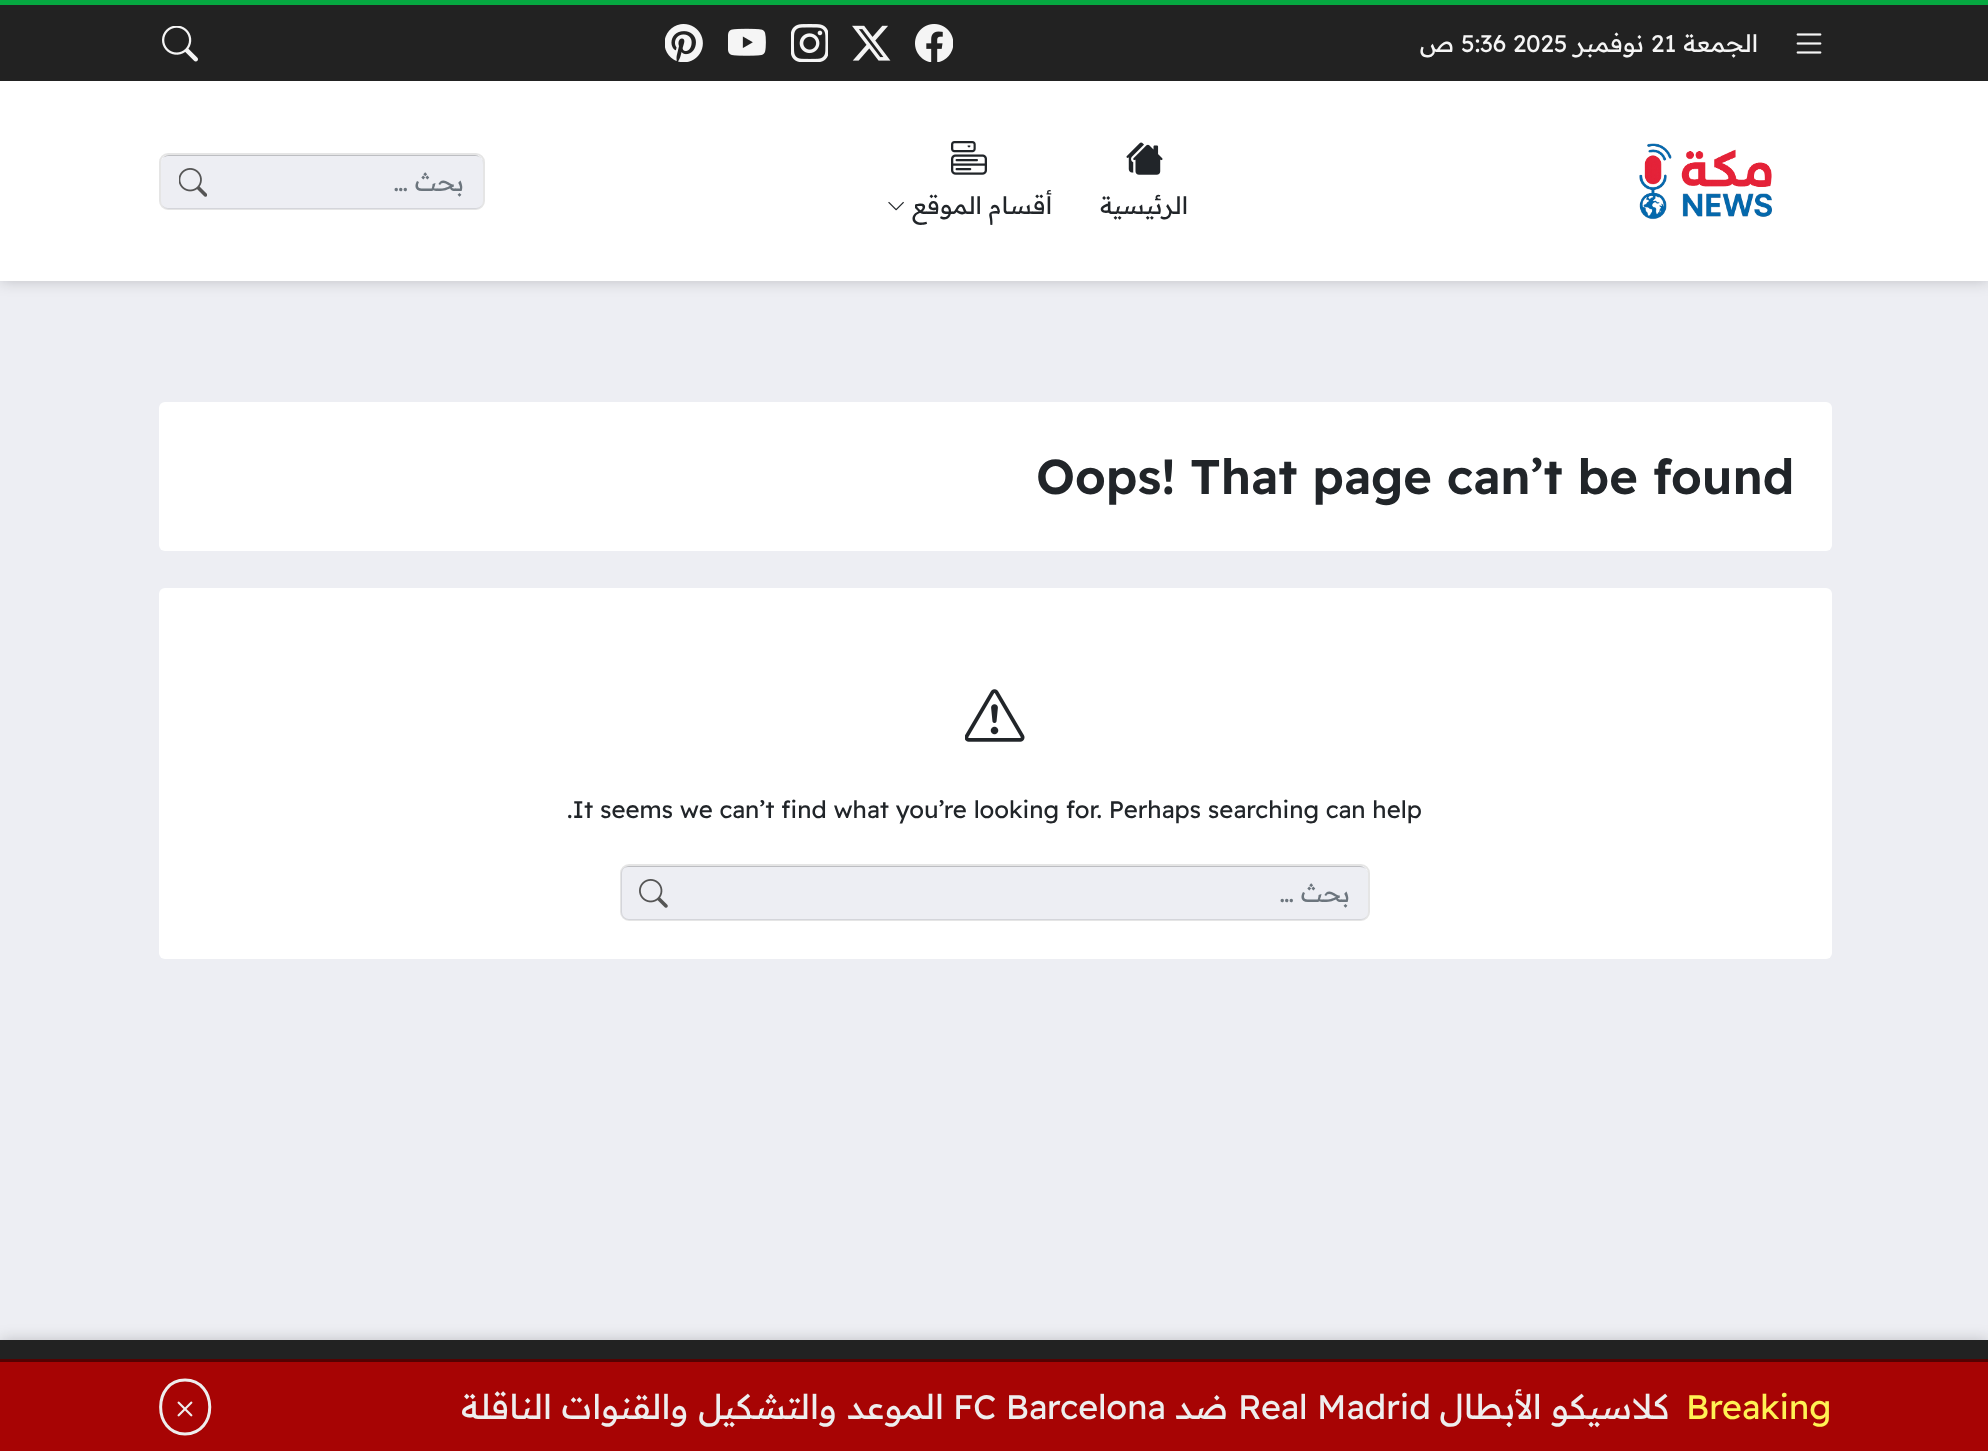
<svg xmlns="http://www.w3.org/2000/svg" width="1988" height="1451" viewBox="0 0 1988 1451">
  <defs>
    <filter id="blur1" x="-50%" y="-200%" width="200%" height="500%"><feGaussianBlur stdDeviation="7.5"/></filter>
  </defs>
  <rect width="100%" height="100%" fill="#edeef3"/>
  <rect x="0" y="0" width="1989" height="281" fill="#000000" fill-opacity="0.2" filter="url(#blur1)"/>
  <rect x="0" y="0" width="1988" height="5" fill="#06a841"/>
  <rect x="0" y="5" width="1988" height="76" fill="#222222"/>
  <image x="162" y="26" width="36" height="36" href="img1.png"/>
  <image x="665" y="24" width="38" height="38" href="img2.png"/>
  <image x="728" y="28" width="38" height="28" href="img3.png"/>
  <image x="791" y="24" width="37" height="38" href="img4.png"/>
  <image x="852" y="25" width="39" height="36" href="img5.png"/>
  <image x="915" y="24" width="38" height="38" href="img6.png"/>
  <text x="1454" y="52" font-family="Readex Pro" font-size="24" direction="rtl" fill="#f5f5f5">ص</text>
  <text x="1461" y="52" font-family="Readex Pro" font-size="24" fill="#f5f5f5">5:36 2025</text>
  <text x="1644" y="52" font-family="Readex Pro" font-size="24" direction="rtl" fill="#f5f5f5">نوفمبر</text>
  <text x="1651" y="52" font-family="Readex Pro" font-size="24" fill="#f5f5f5">21</text>
  <text x="1758" y="52" font-family="Readex Pro" font-size="24" direction="rtl" fill="#f5f5f5">الجمعة</text>
  <image x="1796" y="33" width="26" height="21" href="img7.png"/>
  <rect x="0" y="81" width="1988" height="200" fill="#ffffff"/>
  <rect x="161" y="155" width="322" height="54" rx="8" fill="#edeef3"/>
  <image x="179" y="168" width="28" height="29" href="img8.png"/>
  <path d="M168 156H476C480 156 483 159 483 164V163C483 159 479 155 475 155H169C167 155 164 156 163 158C164 157 166 156 168 156Z" fill="#000000" fill-opacity="0.2"/>
  <rect x="160" y="154" width="324" height="55" rx="8" fill="none" stroke="#000000" stroke-opacity="0.1" stroke-width="2"/>
  <text x="464" y="191" font-family="Readex Pro" font-size="24" direction="rtl" fill="#6c757d">بحث …</text>
  <image x="1639" y="143" width="133" height="77" href="img9.png"/>
  <image x="951" y="141" width="36" height="34" href="img10.png"/>
  <image x="888" y="201" width="16" height="10" href="img11.png"/>
  <text x="1052" y="214" font-family="Readex Pro" font-size="24" direction="rtl" fill="#212529">أقسام الموقع</text>
  <image x="1126" y="142" width="37" height="33" href="img12.png"/>
  <text x="1188" y="214" font-family="Readex Pro" font-size="24" direction="rtl" fill="#212529">الرئيسية</text>
  <rect x="159" y="402" width="1673" height="149" rx="6" fill="#ffffff"/>
  <text x="1036" y="494" font-family="Readex Pro" font-size="48.75" font-weight="600" fill="#212529">Oops! That page can’t be found</text>
  <rect x="159" y="588" width="1673" height="371" rx="6" fill="#ffffff"/>
  <image x="965" y="689" width="60" height="53" href="img13.png"/>
  <text x="567" y="818" font-family="Readex Pro" font-size="24" fill="#212529">.It seems we can’t find what you’re looking for. Perhaps searching can help</text>
  <rect x="621" y="866" width="747" height="54" rx="8" fill="#edeef3"/>
  <image x="639" y="879" width="29" height="29" href="img14.png"/>
  <path d="M628 867H1360C1365 867 1368 870 1368 874C1368 870 1364 866 1360 866H629C625 866 621 870 621 874C621 870 624 867 628 867Z" fill="#000000" fill-opacity="0.2"/>
  <rect x="621" y="865" width="748" height="55" rx="8" fill="none" stroke="#000000" stroke-opacity="0.1" stroke-width="2"/>
  <text x="1350" y="902" font-family="Readex Pro" font-size="24" direction="rtl" fill="#6c757d">بحث …</text>
  <rect x="0" y="1340" width="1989" height="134" fill="#000000" fill-opacity="0.2" filter="url(#blur1)"/>
  <rect x="0" y="1340" width="1988" height="19" fill="#222222"/>
  <rect x="0" y="1362" width="1988" height="89" fill="#a70404"/>
  <rect x="0" y="1359" width="1988" height="3" fill="#540202"/>
  <path d="M185 1380C218 1380 218 1434 185 1434C152.5 1434 152.5 1380 185 1380Z" fill="none" stroke="#eeeeee" stroke-width="3"/>
  <image x="177" y="1401" width="16" height="16" href="img15.png"/>
  <text x="944" y="1419" font-family="Readex Pro" font-size="34" direction="rtl" fill="#eeeeee">الموعد والتشكيل والقنوات الناقلة</text>
  <text x="953" y="1419" font-family="Readex Pro" font-size="34" fill="#eeeeee">FC Barcelona</text>
  <text x="1228" y="1419" font-family="Readex Pro" font-size="34" direction="rtl" fill="#eeeeee">ضد</text>
  <text x="1238" y="1419" font-family="Readex Pro" font-size="34" fill="#eeeeee">Real Madrid</text>
  <text x="1669" y="1419" font-family="Readex Pro" font-size="34" direction="rtl" fill="#eeeeee">كلاسيكو الأبطال</text>
  <text x="1686" y="1419" font-family="Readex Pro" font-size="34" fill="#fff254">Breaking</text>
</svg>
